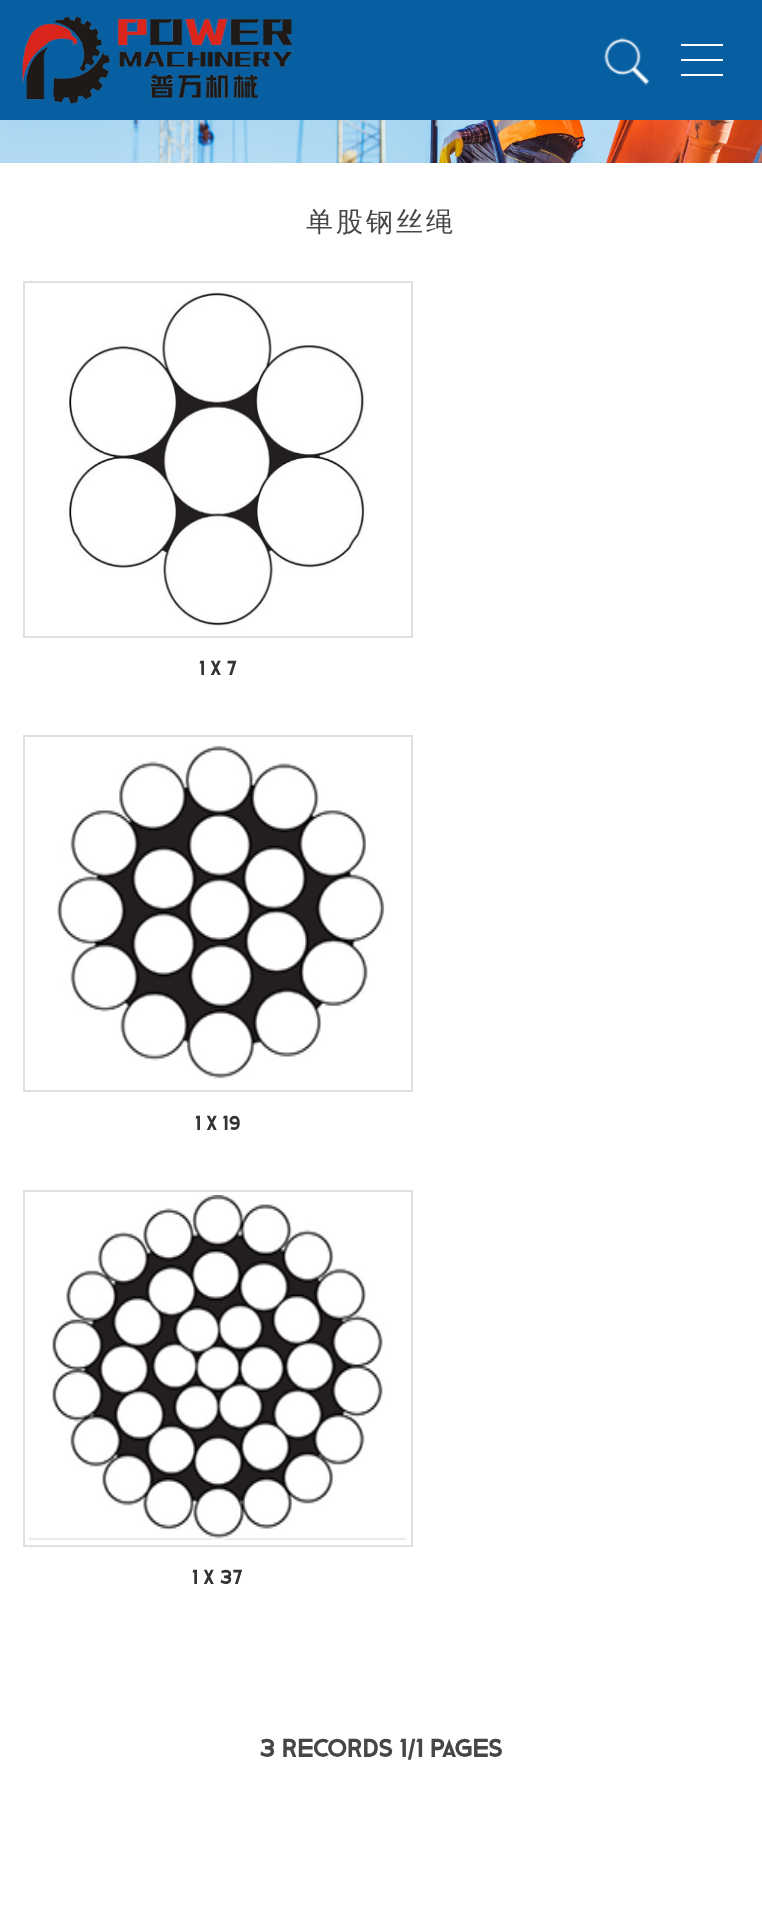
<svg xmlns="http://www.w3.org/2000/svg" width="762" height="1911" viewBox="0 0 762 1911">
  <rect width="100%" height="100%" fill="#ffffff"/>
  <rect x="0" y="0" width="762" height="120" fill="#075fa2"/>
  <image x="22" y="16" width="271" height="88" href="img1.png"/>
  <image x="604" y="37" width="46" height="49" href="img2.png"/>
  <rect x="681" y="59" width="42" height="2" fill="#ffffff"/>
  <rect x="681" y="44" width="42" height="2" fill="#ffffff"/>
  <rect x="681" y="74" width="42" height="2" fill="#ffffff"/>
  <image x="0" y="120" width="762" height="43" href="img3.png"/>
  <text x="306" y="231" font-family="WenQuanYi Zen Hei" font-size="27" font-weight="500" letter-spacing="3" fill="#464646">单股钢丝绳</text>
  <rect x="24" y="282" width="388" height="355" fill="none" stroke="#e0e0e0" stroke-width="2"/>
  <image x="66" y="292" width="299" height="334" href="img4.png"/>
  <text x="199" y="675" font-family="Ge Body" font-size="21" fill="#333333">1 X 7</text>
  <rect x="24" y="736" width="388" height="355" fill="none" stroke="#e0e0e0" stroke-width="2"/>
  <image x="57" y="745" width="328" height="334" href="img5.png"/>
  <text x="195" y="1130" font-family="Ge Body" font-size="21" fill="#333333">1 X 19</text>
  <rect x="24" y="1191" width="388" height="355" fill="none" stroke="#e0e0e0" stroke-width="2"/>
  <image x="28" y="1195" width="379" height="345" href="img6.png"/>
  <text x="192" y="1584" font-family="Ge Body" font-size="21" fill="#333333">1 X 37</text>
  <text x="259" y="1757" font-family="Ge Body" font-size="27" fill="#464646">3 records 1/1 pages</text>
</svg>
